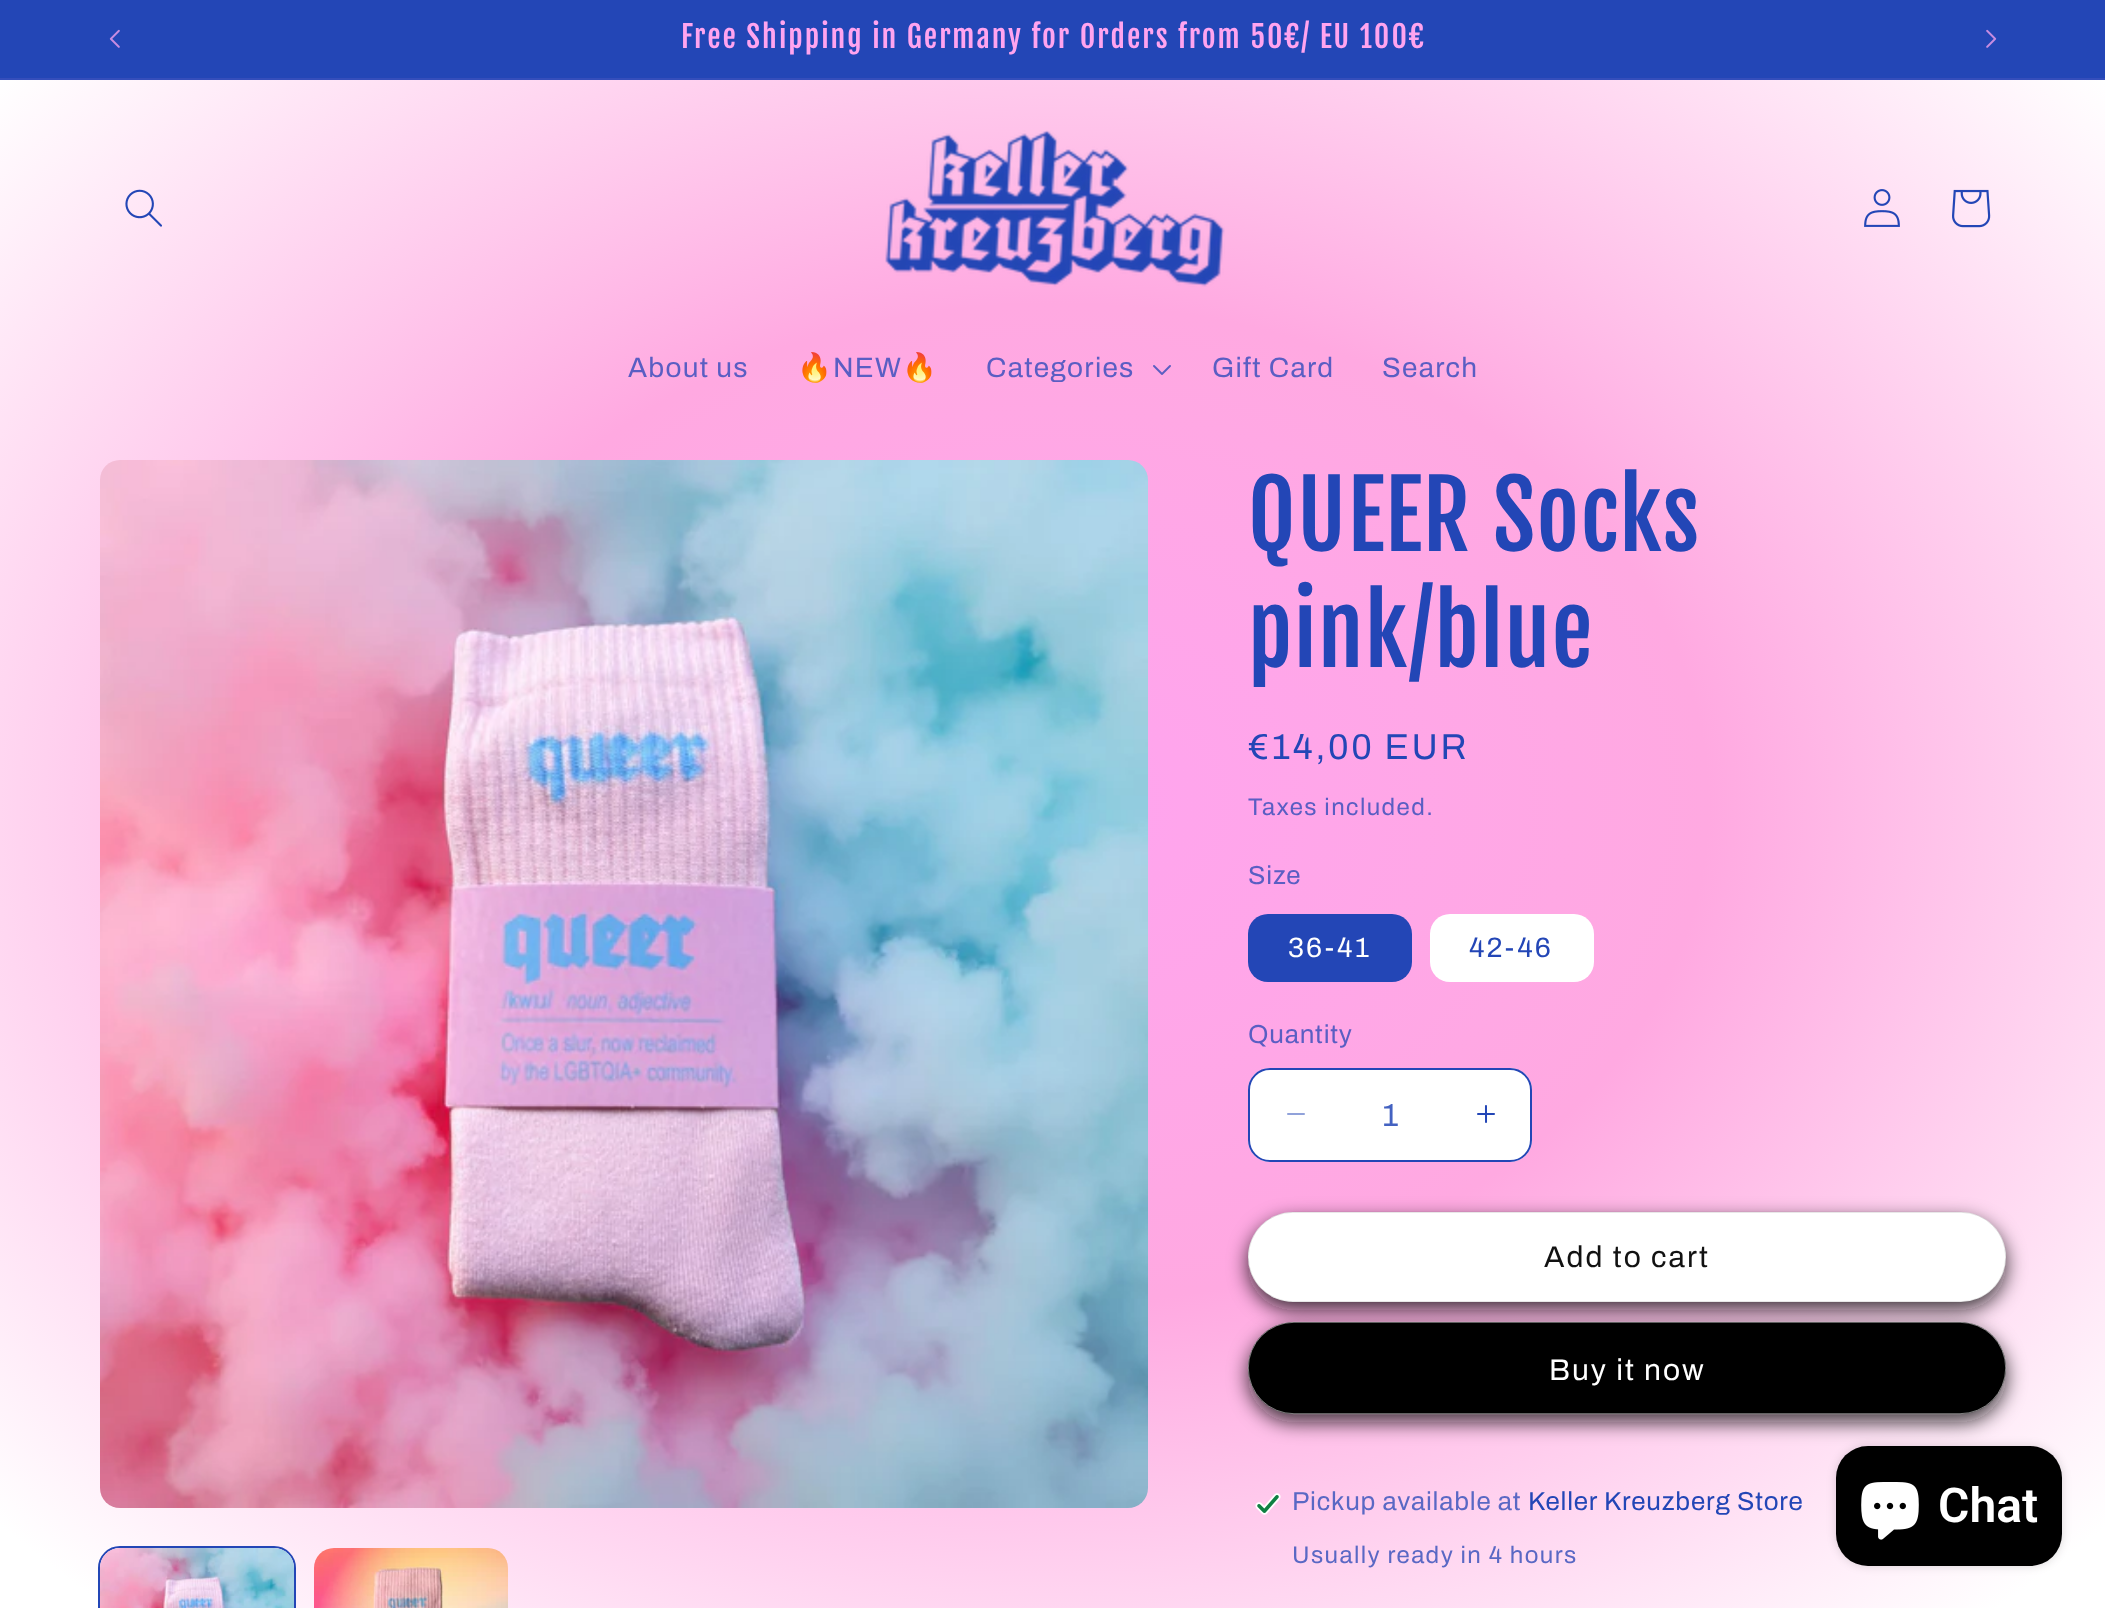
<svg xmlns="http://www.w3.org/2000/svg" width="2105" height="1608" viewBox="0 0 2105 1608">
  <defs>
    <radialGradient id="g1" gradientUnits="userSpaceOnUse" cx="0" cy="0" r="1" gradientTransform="matrix(1489 0 0 1137 1053 804)"><stop offset="0" stop-color="#ffa4ef"/><stop offset="0.44" stop-color="#ffa9e1"/><stop offset="0.95" stop-color="#ffffff"/><stop offset="0.97" stop-color="#ffffff"/></radialGradient>
    <filter id="blur1" x="-50%" y="-200%" width="200%" height="500%"><feGaussianBlur stdDeviation="10"/></filter>
    <filter id="blur2" x="-50%" y="-200%" width="200%" height="500%"><feGaussianBlur stdDeviation="5"/></filter>
  </defs>
  <rect width="100%" height="100%" fill="#ffffff"/>
  <rect x="0" y="80" width="2105" height="1528" fill="url(#g1)"/>
  <rect x="0" y="0" width="2105" height="78" fill="#2346b6"/>
  <rect x="0" y="78" width="2105" height="2" fill="#354ebb"/>
  <image x="109" y="29" width="11" height="19" href="img1.png"/>
  <text x="681" y="48" font-family="Fjalla One" font-size="29.9" letter-spacing="2" fill="#ffa4ef">Free Shipping in Germany for Orders from 50€/ EU 100€</text>
  <image x="1986" y="29" width="11" height="19" href="img2.png"/>
  <image x="125" y="189" width="37" height="38" href="img3.png"/>
  <image x="885" y="130" width="340" height="157" href="img4.png"/>
  <image x="1864" y="189" width="36" height="38" href="img5.png"/>
  <image x="1952" y="189" width="39" height="39" href="img6.png"/>
  <text x="628" y="377" font-family="Archivo" font-size="28" letter-spacing="1.25" fill="#5a5ec3">About us</text>
  <text x="797" y="377" font-family="Noto Color Emoji" font-size="28" letter-spacing="1.25" fill="#5a5ec3">🔥</text>
  <text x="833" y="377" font-family="Archivo" font-size="28" letter-spacing="1.25" fill="#5a5ec3">NEW</text>
  <text x="902" y="377" font-family="Noto Color Emoji" font-size="28" letter-spacing="1.25" fill="#5a5ec3">🔥</text>
  <text x="986" y="377" font-family="Archivo" font-size="28" letter-spacing="1.25" fill="#5a5ec3">Categories</text>
  <image x="1153" y="365" width="18" height="10" href="img7.png"/>
  <text x="1212" y="377" font-family="Archivo" font-size="28" letter-spacing="1.25" fill="#5a5ec3">Gift Card</text>
  <text x="1382" y="377" font-family="Archivo" font-size="28" letter-spacing="1.25" fill="#5a5ec3">Search</text>
  <image x="100" y="460" width="1048" height="1048" href="img8.png"/>
  <rect x="99" y="1547" width="196" height="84" rx="21" fill="none" stroke="#2346b6" stroke-width="2"/>
  <image x="100" y="1548" width="194" height="60" href="img9.png"/>
  <image x="314" y="1548" width="194" height="60" href="img10.png"/>
  <text x="1248" y="551" font-family="Fjalla One" font-size="92" letter-spacing="1.4" fill="#2346b6">QUEER Socks</text>
  <text x="1248" y="667" font-family="Fjalla One" font-size="92" letter-spacing="1.4" fill="#2346b6">pink/blue</text>
  <text x="1248" y="759" font-family="Archivo" font-size="36" letter-spacing="2.6" fill="#2346b6">€14,00 EUR</text>
  <text x="1248" y="815" font-family="Archivo" font-size="24" letter-spacing="1.4" fill="#5a5ec3">Taxes included.</text>
  <text x="1248" y="884" font-family="Archivo" font-size="26" letter-spacing="0.8" fill="#5a5ec3">Size</text>
  <rect x="1248" y="914" width="164" height="68" rx="20" fill="#2346b6"/>
  <text x="1288" y="957" font-family="Archivo" font-size="28" letter-spacing="2" fill="#ffffff">36-41</text>
  <rect x="1430" y="914" width="164" height="68" rx="20" fill="#ffffff"/>
  <text x="1469" y="957" font-family="Archivo" font-size="28" letter-spacing="2" fill="#2346b6">42-46</text>
  <text x="1248" y="1043" font-family="Archivo" font-size="26" letter-spacing="0.8" fill="#5a5ec3">Quantity</text>
  <rect x="1248" y="1068" width="284" height="94" rx="22" fill="#ffffff"/>
  <image x="1287" y="1113" width="18" height="2" href="img11.png"/>
  <image x="1477" y="1105" width="18" height="18" href="img12.png"/>
  <rect x="1249" y="1069" width="282" height="92" rx="21" fill="none" stroke="#2346b6" stroke-width="2"/>
  <text x="1382" y="1126" font-family="Archivo" font-size="32" fill="#4462c1">1</text>
  <rect x="1248" y="1220" width="758" height="90" rx="45" fill="#121212" fill-opacity="0.8" filter="url(#blur1)"/>
  <rect x="1248" y="1330" width="758" height="92" rx="46" fill="#121212" fill-opacity="0.8" filter="url(#blur1)"/>
  <rect x="1248" y="1212" width="758" height="90" rx="45" fill="#ffffff"/>
  <rect x="1248.3" y="1212.3" width="757.4" height="89.4" rx="44.7" fill="none" stroke="#121212" stroke-opacity="0.2" stroke-width="0.6"/>
  <text x="1544" y="1267" font-family="Archivo" font-size="30" letter-spacing="2" fill="#121212">Add to cart</text>
  <rect x="1248" y="1322" width="758" height="92" rx="46" fill="#000000"/>
  <rect x="1248.3" y="1322.3" width="757.4" height="91.4" rx="45.7" fill="none" stroke="#ffffff" stroke-opacity="0.8" stroke-width="0.6"/>
  <text x="1549" y="1380" font-family="Archivo" font-size="30" letter-spacing="2" fill="#ffffff">Buy it now</text>
  <image x="1255" y="1493" width="26" height="22" href="img13.png"/>
  <text x="1292" y="1510" font-family="Archivo" font-size="26" letter-spacing="0.8" fill="#5a68c4">Pickup available at</text>
  <text x="1528" y="1510" font-family="Archivo" font-size="26" letter-spacing="0.8" fill="#2346b6">Keller Kreuzberg Store</text>
  <text x="1292" y="1563" font-family="Archivo" font-size="24" letter-spacing="1.4" fill="#5a68c4">Usually ready in 4 hours</text>
  <rect x="1836" y="1446" width="226" height="120" rx="32" fill="#000000" fill-opacity="0.15" filter="url(#blur2)"/>
  <rect x="1836" y="1446" width="226" height="120" rx="32" fill="#000000"/>
  <image x="1861" y="1482" width="58" height="58" href="img14.png"/>
  <text x="1938" y="1522" font-family="Roboto" font-size="48" font-weight="600" fill="#ffffff">Chat</text>
</svg>
